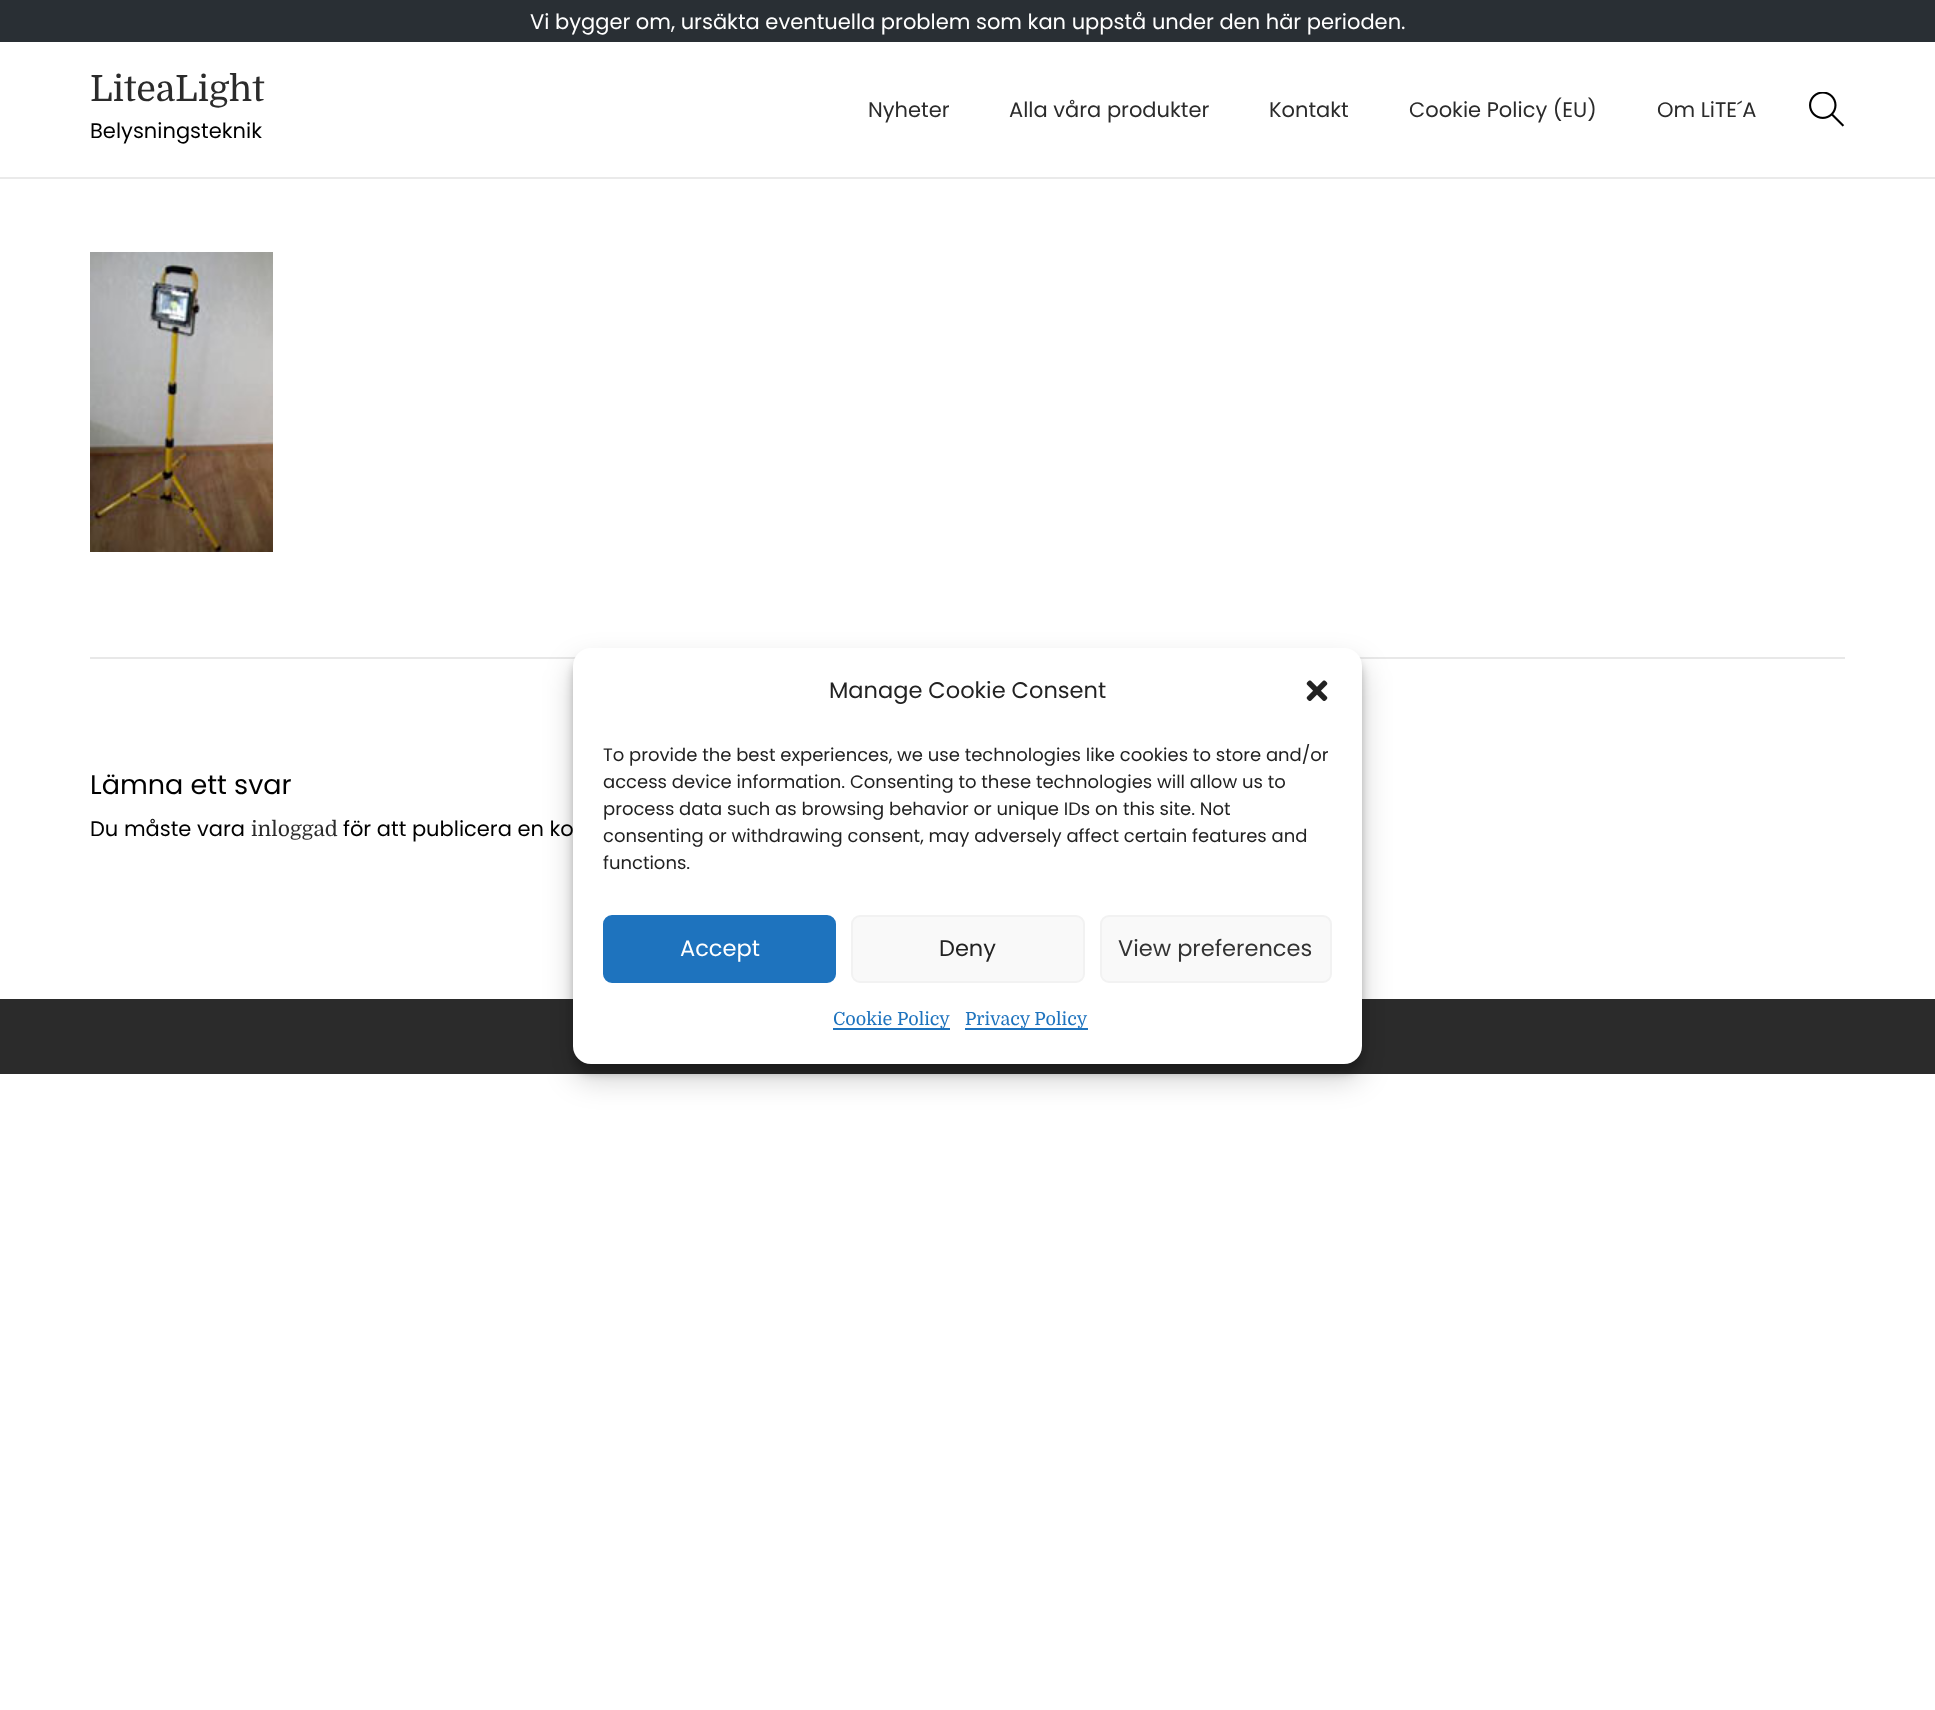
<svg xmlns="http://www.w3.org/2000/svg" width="1935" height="1710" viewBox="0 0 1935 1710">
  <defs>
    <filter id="blur1" x="-50%" y="-200%" width="200%" height="500%"><feGaussianBlur stdDeviation="4.5"/></filter>
    <filter id="blur2" x="-50%" y="-200%" width="200%" height="500%"><feGaussianBlur stdDeviation="15"/></filter>
  </defs>
  <rect width="100%" height="100%" fill="#ffffff"/>
  <rect x="0" y="0" width="1935" height="42" fill="#292f34"/>
  <text x="530" y="29" font-family="Poppins" font-size="21" fill="#ffffff">Vi bygger om, ursäkta eventuella problem som kan uppstå under den här perioden.</text>
  <rect x="0" y="177" width="1935" height="2" fill="#eaeaea"/>
  <text x="90" y="101" font-family="Domine" font-size="36" fill="#2b2b2b">LiteaLight</text>
  <text x="90" y="138" font-family="Poppins" font-size="21" fill="#000000">Belysningsteknik</text>
  <text x="868" y="117" font-family="Poppins" font-size="21" fill="#2b2b2b">Nyheter</text>
  <text x="1009" y="117" font-family="Poppins" font-size="21" fill="#2b2b2b">Alla våra produkter</text>
  <text x="1269" y="117" font-family="Poppins" font-size="21" fill="#2b2b2b">Kontakt</text>
  <text x="1409" y="117" font-family="Poppins" font-size="21" fill="#2b2b2b">Cookie Policy (EU)</text>
  <text x="1657" y="117" font-family="Poppins" font-size="21" fill="#2b2b2b">Om LiTE´A</text>
  <image x="1809" y="92" width="36" height="35" href="img1.png"/>
  <image x="90" y="252" width="183" height="300" href="img2.png"/>
  <rect x="90" y="657" width="1755" height="2" fill="#e8e8e8"/>
  <text x="90" y="794" font-family="Poppins" font-size="27" fill="#000000">Lämna ett svar</text>
  <text x="90" y="836" font-family="Poppins" font-size="21" fill="#000000">Du måste vara</text>
  <text x="251" y="836" font-family="Domine" font-size="21" fill="#2b2b2b">inloggad</text>
  <text x="343" y="836" font-family="Poppins" font-size="21" fill="#000000">för att publicera en ko</text>
  <rect x="0" y="999" width="1935" height="75" fill="#2b2b2b"/>
  <rect x="573" y="657" width="789" height="416" rx="18" fill="#000000" fill-opacity="0.23" filter="url(#blur1)"/>
  <rect x="573" y="663" width="789" height="416" rx="18" fill="#000000" fill-opacity="0.19" filter="url(#blur2)"/>
  <rect x="573" y="648" width="789" height="416" rx="18" fill="#ffffff"/>
  <text x="829" y="698" font-family="Poppins" font-size="22.5" fill="#222222">Manage Cookie Consent</text>
  <image x="1306" y="680" width="22" height="21" href="img3.png"/>
  <text x="603" y="761" font-family="Poppins" font-size="18" fill="#222222">To provide the best experiences, we use technologies like cookies to store and/or</text>
  <text x="603" y="788" font-family="Poppins" font-size="18" fill="#222222">access device information. Consenting to these technologies will allow us to</text>
  <text x="603" y="815" font-family="Poppins" font-size="18" fill="#222222">process data such as browsing behavior or unique IDs on this site. Not</text>
  <text x="603" y="842" font-family="Poppins" font-size="18" fill="#222222">consenting or withdrawing consent, may adversely affect certain features and</text>
  <text x="603" y="869" font-family="Poppins" font-size="18" fill="#222222">functions.</text>
  <rect x="604" y="916" width="231" height="66" rx="8" fill="#1e73be" stroke="#1e73be" stroke-width="2"/>
  <text x="680" y="956" font-family="Poppins" font-size="22.5" fill="#ffffff">Accept</text>
  <rect x="852" y="916" width="232" height="66" rx="8" fill="#f9f9f9" stroke="#f2f2f2" stroke-width="2"/>
  <text x="939" y="956" font-family="Poppins" font-size="22.5" fill="#222222">Deny</text>
  <rect x="1101" y="916" width="230" height="66" rx="8" fill="#f9f9f9" stroke="#f2f2f2" stroke-width="2"/>
  <text x="1118" y="956" font-family="Poppins" font-size="22.5" fill="#333333">View preferences</text>
  <rect x="833" y="1028" width="117" height="2" fill="#1e73be"/>
  <text x="833" y="1025" font-family="Domine" font-size="18" fill="#1e73be">Cookie Policy</text>
  <rect x="965" y="1028" width="123" height="2" fill="#1e73be"/>
  <text x="965" y="1025" font-family="Domine" font-size="18" fill="#1e73be">Privacy Policy</text>
</svg>
